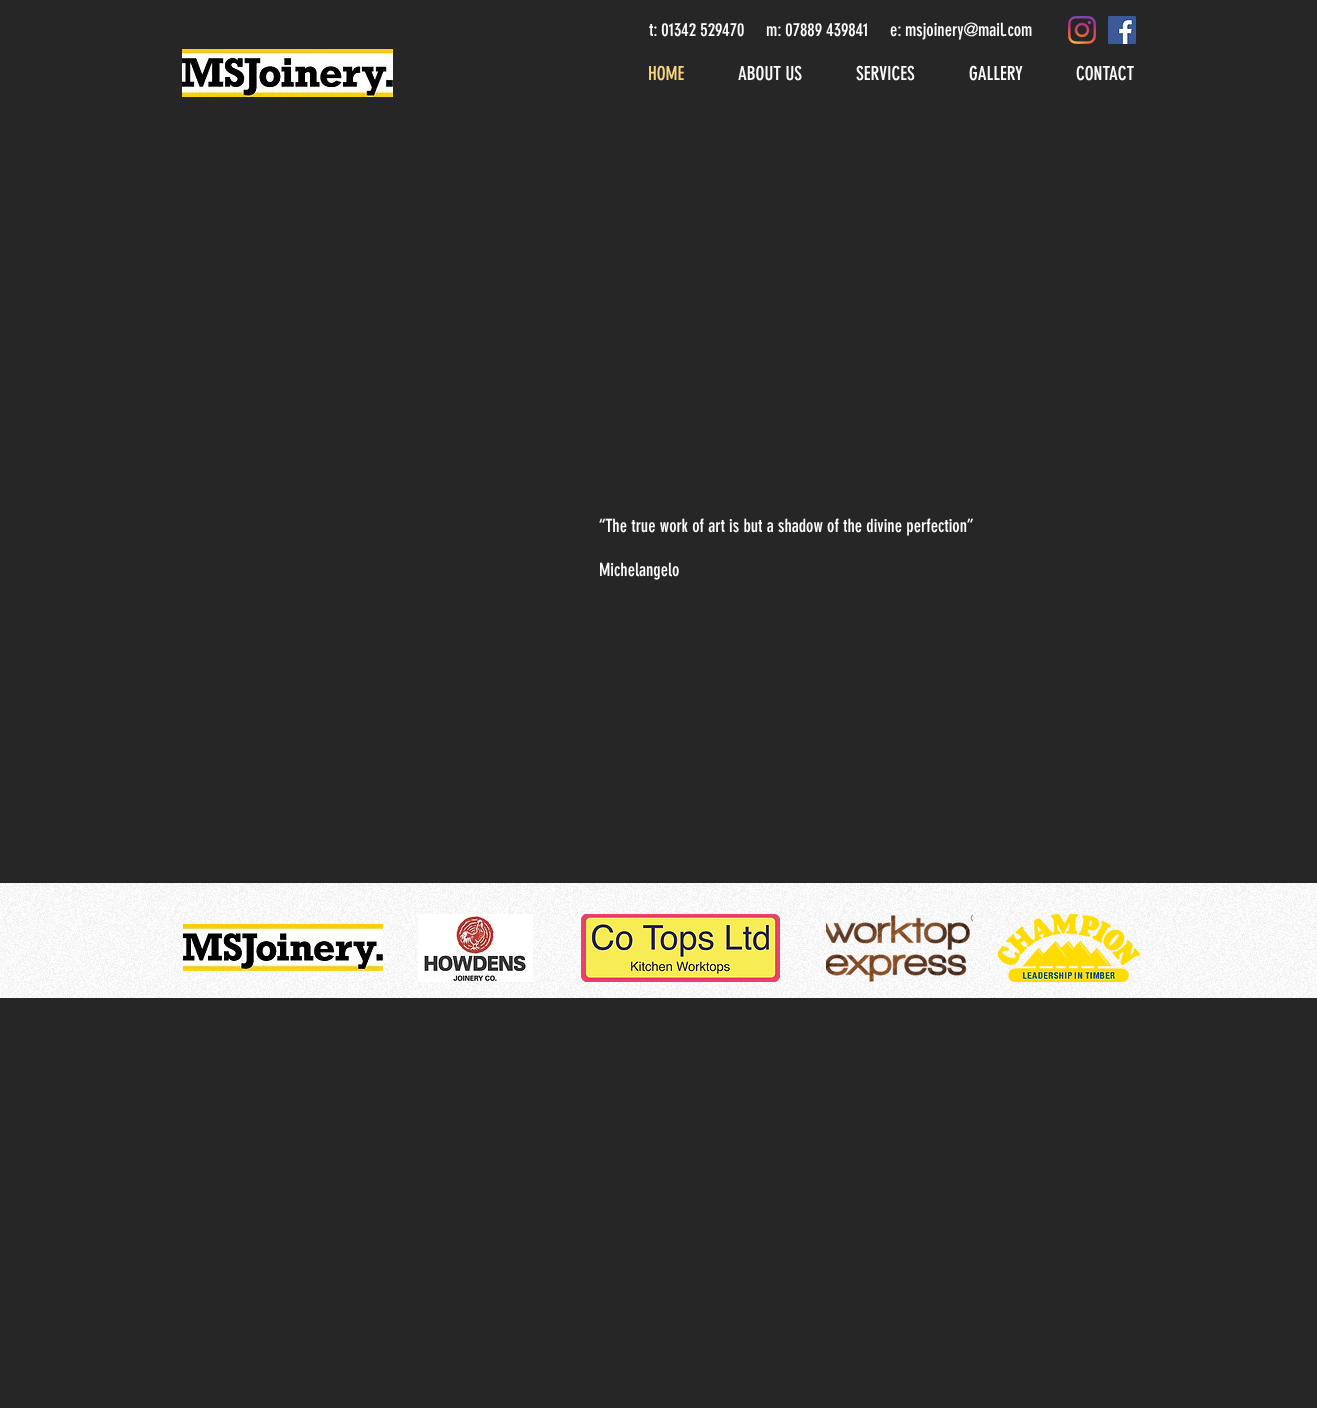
<svg xmlns="http://www.w3.org/2000/svg" width="1317" height="1408" viewBox="0 0 1317 1408">
  <rect width="100%" height="100%" fill="#262626"/>
  <text x="649" y="36" font-family="'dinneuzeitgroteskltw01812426'" font-size="18" fill="#fcfcfc" xml:space="preserve">t: 01342 529470     m: 07889 439841     e:</text>
  <text x="905" y="36" font-family="'dinneuzeitgroteskltw01812426'" font-size="18" fill="#fcfcfc">msjoinery@mail.com</text>
  <image x="1068" y="16" width="28" height="28" href="img1.png"/>
  <image x="1108" y="16" width="28" height="28" href="img2.png"/>
  <image x="182" y="49" width="211" height="48" href="img3.png"/>
  <text x="648" y="80" font-family="'dinneuzeitgroteskltw01812426'" font-size="19" fill="#f7d57f">HOME</text>
  <text x="738" y="80" font-family="'dinneuzeitgroteskltw01812426'" font-size="19" fill="#fcfcfc">ABOUT US</text>
  <text x="856" y="80" font-family="'dinneuzeitgroteskltw01812426'" font-size="19" fill="#fcfcfc">SERVICES</text>
  <text x="969" y="80" font-family="'dinneuzeitgroteskltw01812426'" font-size="19" fill="#fcfcfc">GALLERY</text>
  <text x="1076" y="80" font-family="'dinneuzeitgroteskltw01812426'" font-size="19" fill="#fcfcfc">CONTACT</text>
  <text x="599" y="532" font-family="'dinneuzeitgroteskltw01812426'" font-size="18" fill="#fcfcfc">“The true work of art is but a shadow of the divine perfection”</text>
  <text x="599" y="576" font-family="'dinneuzeitgroteskltw01812426'" font-size="18" fill="#fcfcfc">Michelangelo</text>
  <rect x="0" y="883" width="1317" height="115" fill="#ffffff"/>
  <image x="0" y="883" width="1317" height="115" href="img4.png"/>
  <image x="183" y="924" width="200" height="47" href="img5.png"/>
  <image x="418" y="914" width="115" height="68" href="img6.png"/>
  <image x="581" y="914" width="199" height="68" href="img7.png"/>
  <image x="826" y="914" width="147" height="68" href="img8.png"/>
  <image x="998" y="914" width="142" height="68" href="img9.png"/>
</svg>
